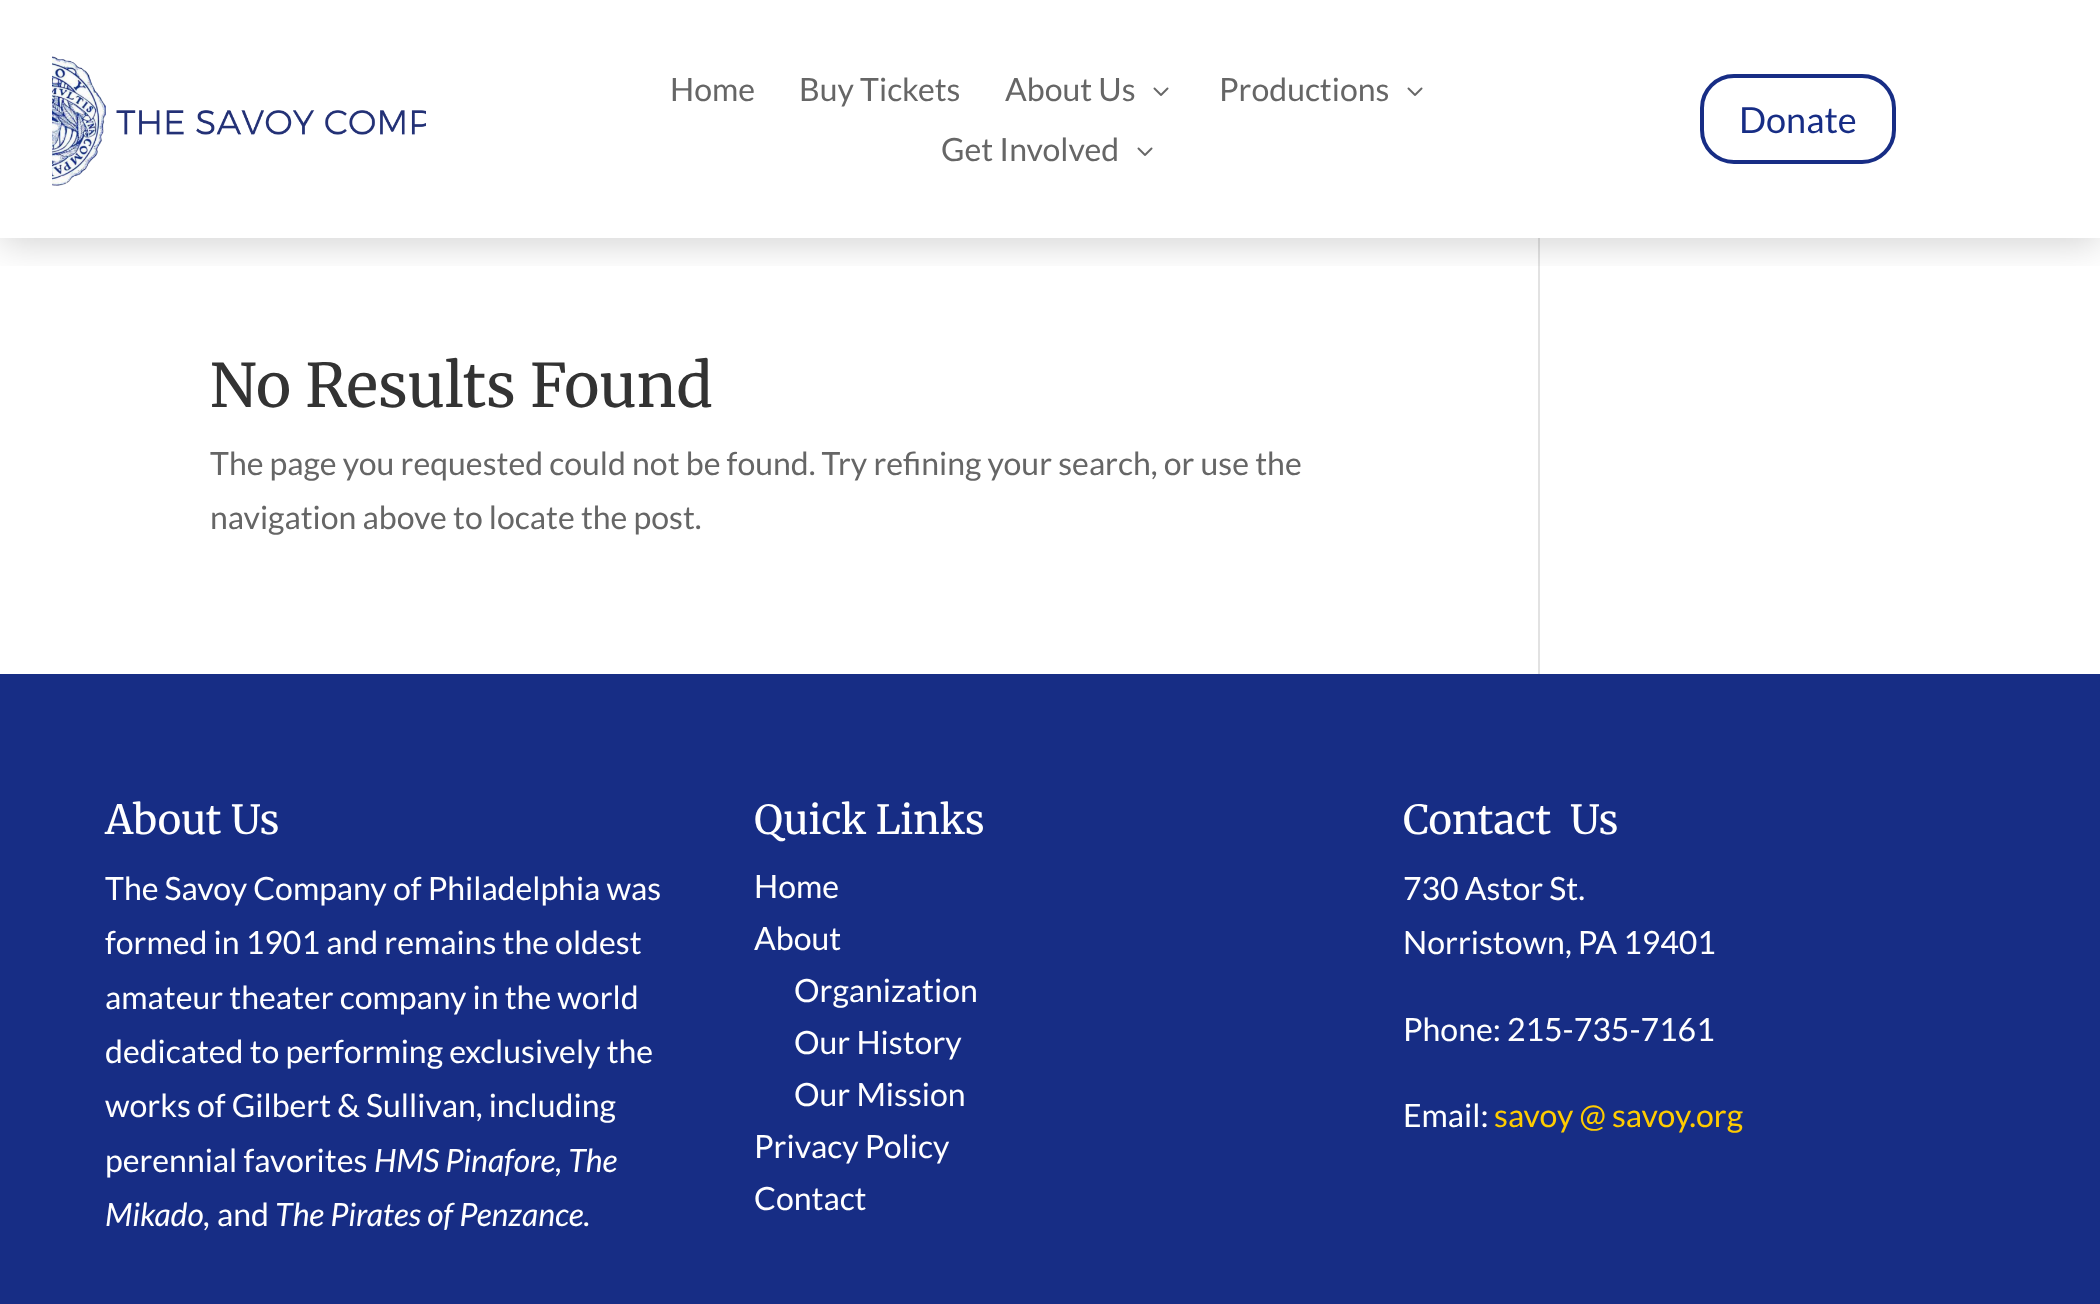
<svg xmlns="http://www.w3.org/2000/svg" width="2100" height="1304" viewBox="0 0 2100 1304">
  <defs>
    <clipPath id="clip1"><rect x="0" y="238" width="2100" height="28"/></clipPath>
    <filter id="blur1" x="-50%" y="-200%" width="200%" height="500%"><feGaussianBlur stdDeviation="19"/></filter>
  </defs>
  <rect width="100%" height="100%" fill="#ffffff"/>
  <rect x="1538" y="238" width="2" height="436" fill="#e2e2e2"/>
  <g clip-path="url(#clip1)">
    <rect x="0" y="4" width="2100" height="238" fill="#000000" fill-opacity="0.19" filter="url(#blur1)"/>
  </g>
  <image x="52" y="56" width="374" height="130" href="img1.png"/>
  <text x="670" y="101" font-family="Lato" font-size="32" fill="#666666">Home</text>
  <text x="799" y="101" font-family="Lato" font-size="32" fill="#666666">Buy Tickets</text>
  <text x="1005" y="101" font-family="Lato" font-size="32" fill="#666666">About Us</text>
  <image x="1153" y="87" width="16" height="9" href="img2.png"/>
  <text x="1219" y="101" font-family="Lato" font-size="32" fill="#666666">Productions</text>
  <image x="1407" y="87" width="16" height="9" href="img2.png"/>
  <text x="941" y="161" font-family="Lato" font-size="32" fill="#666666">Get Involved</text>
  <image x="1137" y="147" width="16" height="9" href="img2.png"/>
  <rect x="1702" y="76" width="192" height="86" rx="32" fill="none" stroke="#172d85" stroke-width="4"/>
  <text x="1739" y="133" font-family="Lato" font-size="36" fill="#172d85">Donate</text>
  <text x="210" y="407" font-family="Merriweather" font-size="60" fill="#333333">No Results Found</text>
  <text x="210" y="475" font-family="Lato" font-size="32" fill="#666666">The page you requested could not be found. Try refining your search, or use the</text>
  <text x="210" y="529" font-family="Lato" font-size="32" fill="#666666">navigation above to locate the post.</text>
  <rect x="0" y="674" width="2100" height="630" fill="#172d85"/>
  <text x="105" y="834" font-family="Merriweather" font-size="40" fill="#ffffff">About Us</text>
  <text x="105" y="900" font-family="Lato" font-size="32" fill="#ffffff">The Savoy Company of Philadelphia was</text>
  <text x="105" y="954" font-family="Lato" font-size="32" fill="#ffffff">formed in 1901 and remains the oldest</text>
  <text x="105" y="1009" font-family="Lato" font-size="32" fill="#ffffff">amateur theater company in the world</text>
  <text x="105" y="1063" font-family="Lato" font-size="32" fill="#ffffff">dedicated to performing exclusively the</text>
  <text x="105" y="1117" font-family="Lato" font-size="32" fill="#ffffff">works of Gilbert &amp; Sullivan, including</text>
  <text x="105" y="1172" font-family="Lato" font-size="32" fill="#ffffff">perennial favorites</text>
  <text x="374" y="1172" font-family="Lato" font-size="32" font-style="italic" fill="#ffffff">HMS Pinafore, The</text>
  <text x="105" y="1226" font-family="Lato" font-size="32" font-style="italic" fill="#ffffff">Mikado,</text>
  <text x="217" y="1226" font-family="Lato" font-size="32" fill="#ffffff">and</text>
  <text x="275" y="1226" font-family="Lato" font-size="32" font-style="italic" fill="#ffffff">The Pirates of Penzance.</text>
  <text x="754" y="834" font-family="Merriweather" font-size="40" fill="#ffffff">Quick Links</text>
  <text x="754" y="898" font-family="Lato" font-size="32" fill="#ffffff">Home</text>
  <text x="754" y="950" font-family="Lato" font-size="32" fill="#ffffff">About</text>
  <text x="794" y="1002" font-family="Lato" font-size="32" fill="#ffffff">Organization</text>
  <text x="794" y="1054" font-family="Lato" font-size="32" fill="#ffffff">Our History</text>
  <text x="794" y="1106" font-family="Lato" font-size="32" fill="#ffffff">Our Mission</text>
  <text x="754" y="1158" font-family="Lato" font-size="32" fill="#ffffff">Privacy Policy</text>
  <text x="754" y="1210" font-family="Lato" font-size="32" fill="#ffffff">Contact</text>
  <text x="1403" y="834" font-family="Merriweather" font-size="40" fill="#ffffff" xml:space="preserve">Contact  Us</text>
  <text x="1403" y="900" font-family="Lato" font-size="32" fill="#ffffff">730 Astor St.</text>
  <text x="1403" y="954" font-family="Lato" font-size="32" fill="#ffffff">Norristown, PA 19401</text>
  <text x="1403" y="1041" font-family="Lato" font-size="32" fill="#ffffff">Phone: 215-735-7161</text>
  <text x="1403" y="1127" font-family="Lato" font-size="32" fill="#ffffff">Email:</text>
  <text x="1494" y="1127" font-family="Lato" font-size="32" fill="#ffcc00">savoy @ savoy.org</text>
</svg>
